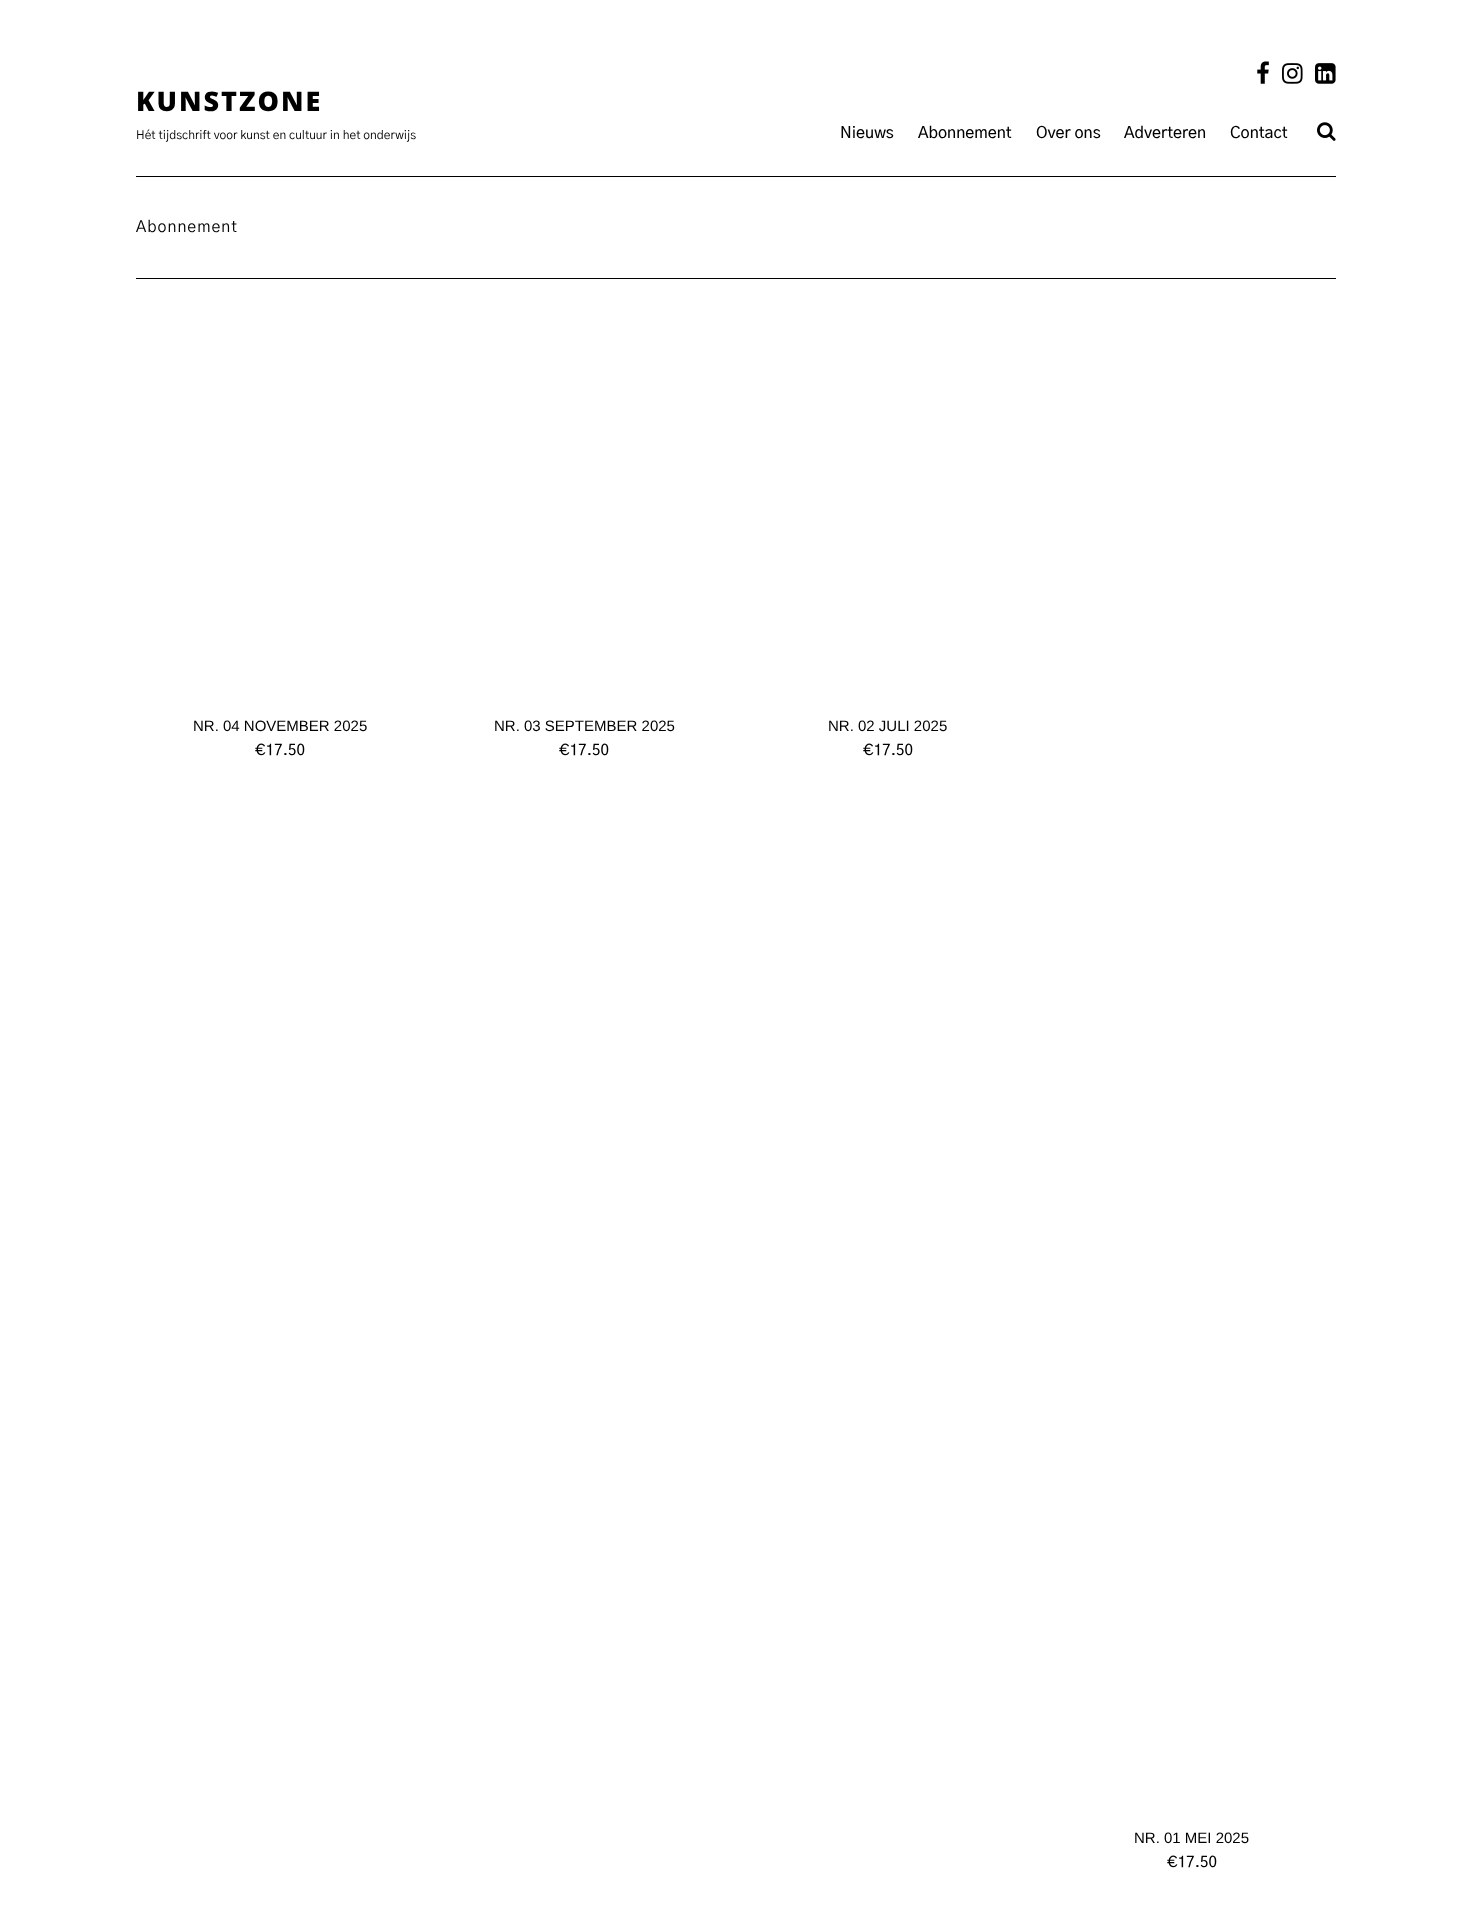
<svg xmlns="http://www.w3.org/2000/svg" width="1472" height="1905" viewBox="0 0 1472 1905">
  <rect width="100%" height="100%" fill="#ffffff"/>
  <rect x="136" y="176" width="1200" height="1" fill="#000000"/>
  <text x="136" y="111" font-family="Open Sans" font-size="27" font-weight="800" letter-spacing="2" fill="#000000">KUNSTZONE</text>
  <text x="136" y="139" font-family="'Gothic A1'" font-size="12" fill="#000000">Hét tijdschrift voor kunst en cultuur in het onderwijs</text>
  <image x="1257" y="61" width="12" height="23" href="img1.png"/>
  <image x="1282" y="63" width="21" height="21" href="img2.png"/>
  <image x="1315" y="63" width="21" height="21" href="img3.png"/>
  <text x="840" y="138" font-family="'Gothic A1'" font-size="16" font-weight="500" fill="#000000">Nieuws</text>
  <text x="918" y="138" font-family="'Gothic A1'" font-size="16" font-weight="500" fill="#000000">Abonnement</text>
  <text x="1036" y="138" font-family="'Gothic A1'" font-size="16" font-weight="500" fill="#000000">Over ons</text>
  <text x="1124" y="138" font-family="'Gothic A1'" font-size="16" font-weight="500" fill="#000000">Adverteren</text>
  <text x="1230" y="138" font-family="'Gothic A1'" font-size="16" font-weight="500" fill="#000000">Contact</text>
  <image x="1317" y="122" width="19" height="19" href="img4.png"/>
  <rect x="136" y="278" width="1200" height="1" fill="#000000"/>
  <text x="136" y="232" font-family="'Gothic A1'" font-size="16" letter-spacing="1" fill="#000000">Abonnement</text>
  <text x="193" y="731" font-family="Liberation Sans" font-size="15" fill="#000000">NR. 04 NOVEMBER 2025</text>
  <text x="255" y="755" font-family="'Gothic A1'" font-size="15" font-weight="500" fill="#000000">€17.50</text>
  <text x="494" y="731" font-family="Liberation Sans" font-size="15" fill="#000000">NR. 03 SEPTEMBER 2025</text>
  <text x="559" y="755" font-family="'Gothic A1'" font-size="15" font-weight="500" fill="#000000">€17.50</text>
  <text x="828" y="731" font-family="Liberation Sans" font-size="15" fill="#000000">NR. 02 JULI 2025</text>
  <text x="863" y="755" font-family="'Gothic A1'" font-size="15" font-weight="500" fill="#000000">€17.50</text>
  <text x="1134" y="1843" font-family="Liberation Sans" font-size="15" fill="#000000">NR. 01 MEI 2025</text>
  <text x="1167" y="1867" font-family="'Gothic A1'" font-size="15" font-weight="500" fill="#000000">€17.50</text>
</svg>
